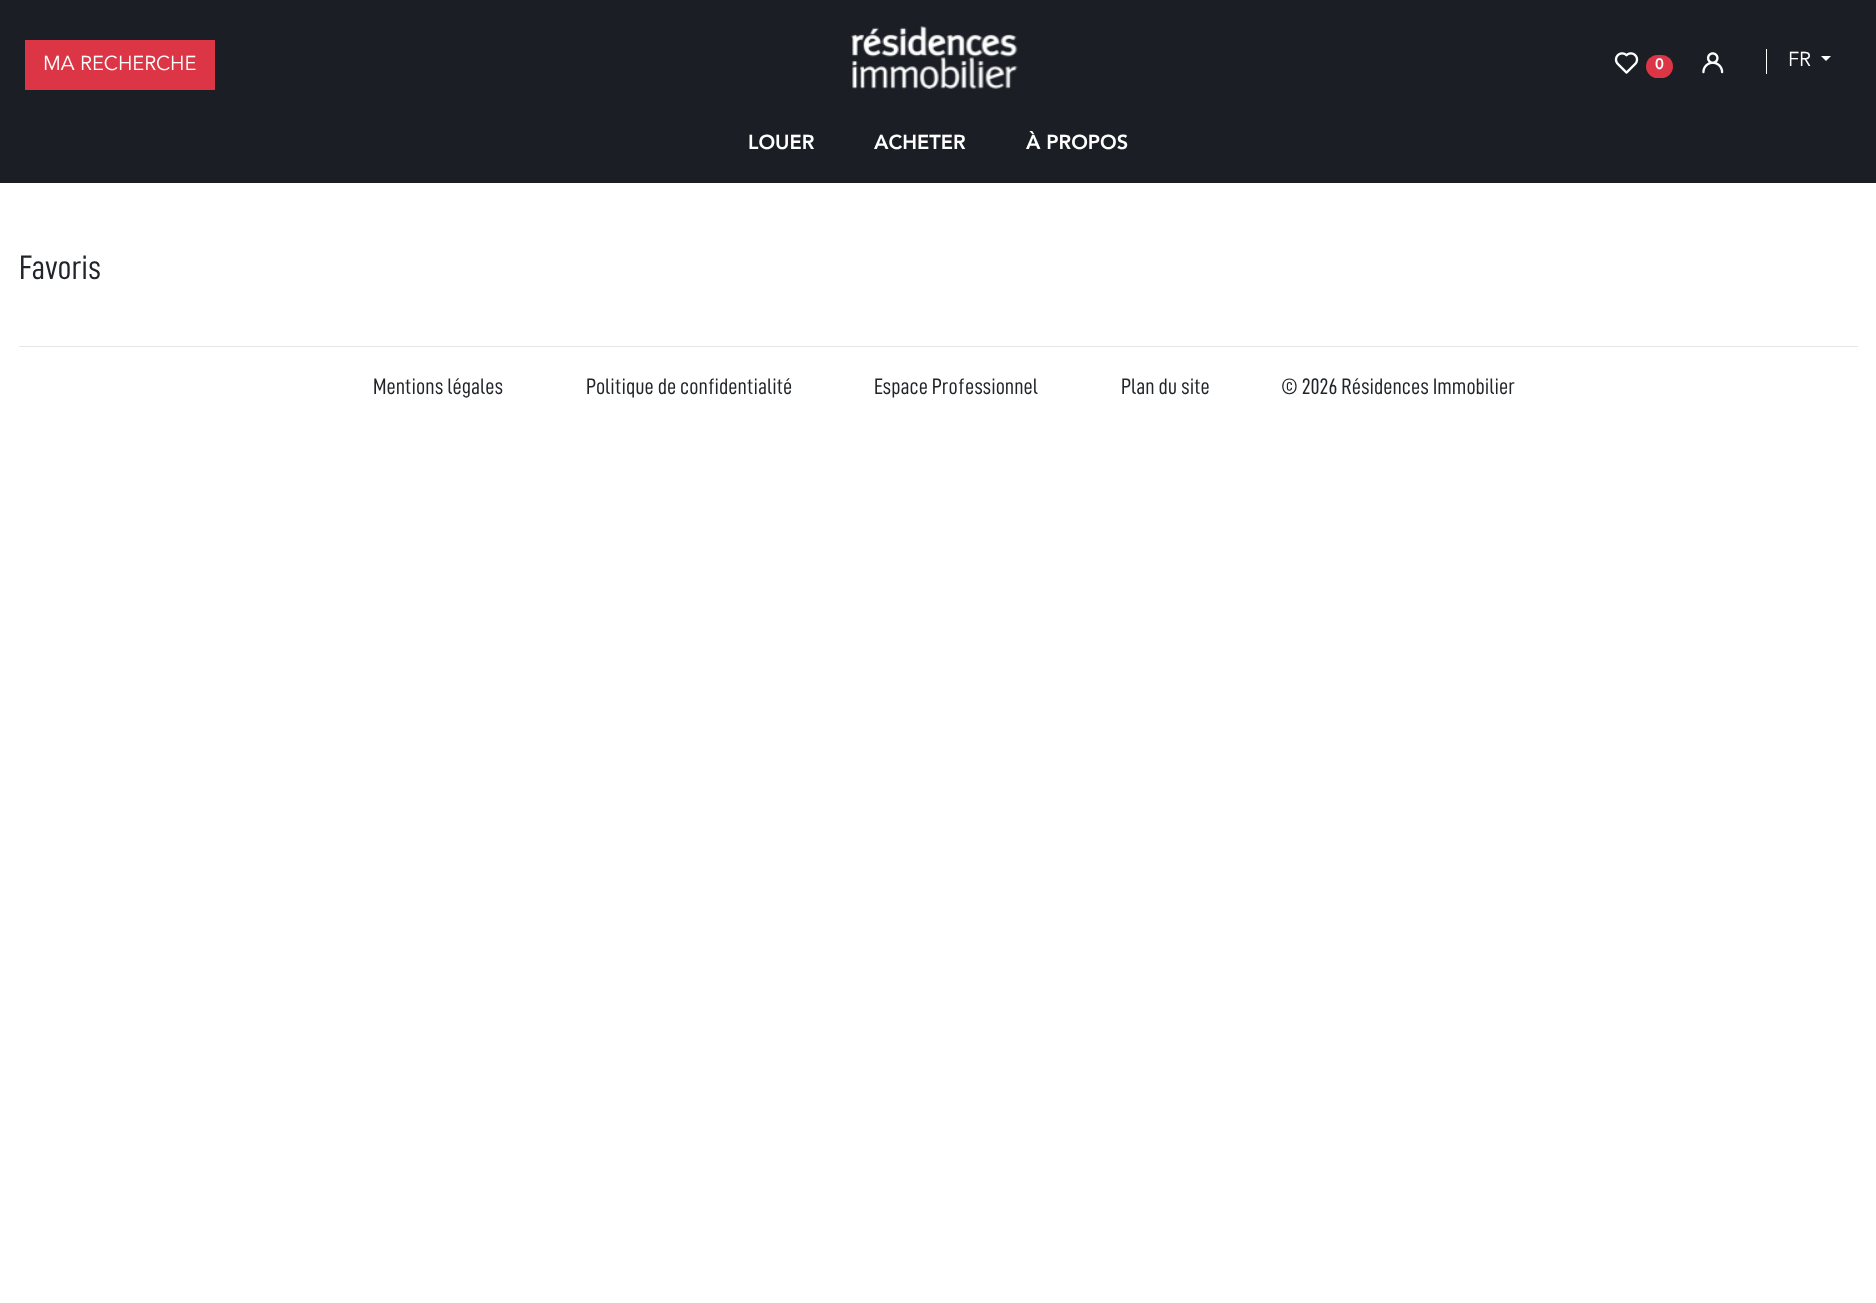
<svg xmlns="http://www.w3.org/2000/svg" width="1876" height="1303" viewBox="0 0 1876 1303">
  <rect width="100%" height="100%" fill="#ffffff"/>
  <rect x="0" y="0" width="1876" height="183" fill="#1b1f25"/>
  <rect x="25" y="40" width="190" height="50" fill="#dc3545"/>
  <text x="43" y="70" font-family="Avenir" font-size="20" fill="#ffffff">MA RECHERCHE</text>
  <image x="851" y="26" width="167" height="63" href="img1.png"/>
  <image x="1614" y="52" width="25" height="22" href="img2.png"/>
  <rect x="1646" y="55" width="27" height="23" rx="11.5" fill="#dc3545"/>
  <text x="1655" y="69" font-family="Avenir" font-size="15" font-weight="900" fill="#ffffff">0</text>
  <image x="1702" y="52" width="22" height="22" href="img3.png"/>
  <rect x="1766" y="49" width="1" height="25" fill="#ffffff"/>
  <text x="1788" y="66" font-family="Avenir" font-size="20" fill="#ffffff">FR</text>
  <path d="M1821 56H1831L1826 61Z" fill="#ffffff"/>
  <text x="748" y="149" font-family="Avenir" font-size="20" font-weight="900" fill="#ffffff">LOUER</text>
  <text x="874" y="149" font-family="Avenir" font-size="20" font-weight="900" fill="#ffffff">ACHETER</text>
  <text x="1026" y="149" font-family="Avenir" font-size="20" font-weight="900" fill="#ffffff">À PROPOS</text>
  <text x="19" y="279" font-family="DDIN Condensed" font-size="34" fill="#212529">Favoris</text>
  <rect x="19" y="346" width="1839" height="1" fill="#e6e6e6"/>
  <text x="373" y="394" font-family="DDIN Condensed" font-size="22.5" fill="#212529">Mentions légales</text>
  <text x="586" y="394" font-family="DDIN Condensed" font-size="22.5" fill="#212529">Politique de confidentialité</text>
  <text x="874" y="394" font-family="DDIN Condensed" font-size="22.5" fill="#212529">Espace Professionnel</text>
  <text x="1121" y="394" font-family="DDIN Condensed" font-size="22.5" fill="#212529">Plan du site</text>
  <text x="1281" y="394" font-family="DDIN Condensed" font-size="22.5" fill="#212529">© 2026 Résidences Immobilier</text>
</svg>
